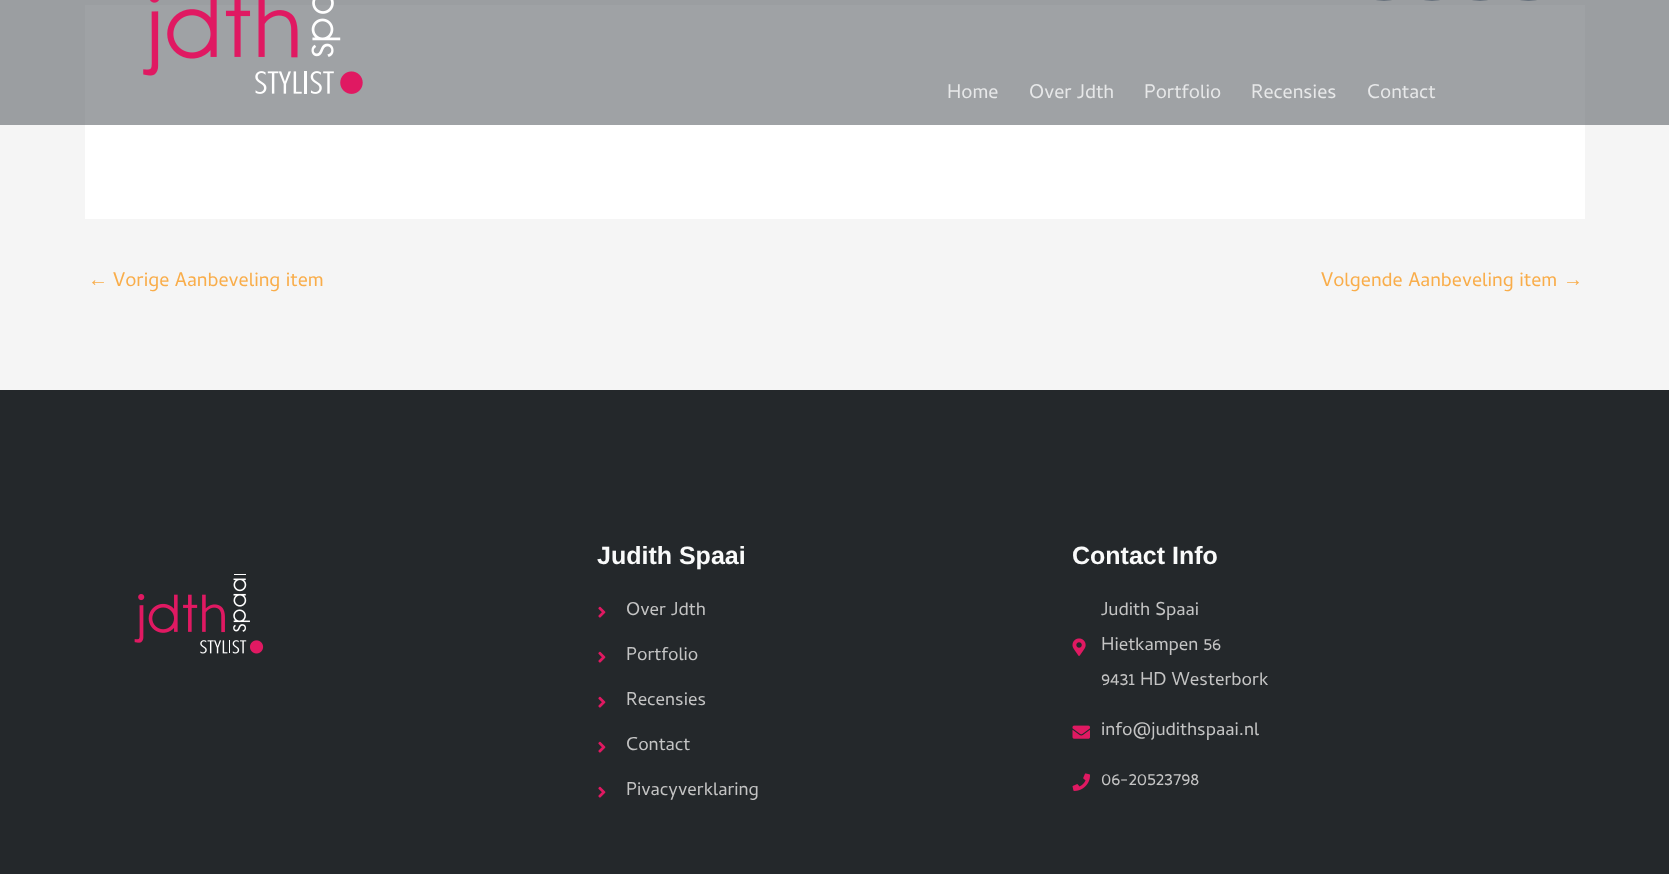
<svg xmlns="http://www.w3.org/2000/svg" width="1669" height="874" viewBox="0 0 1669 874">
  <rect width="100%" height="100%" fill="#f5f5f5"/>
  <rect x="0" y="0" width="1669" height="125" fill="#9b9ea1"/>
  <rect x="85" y="5" width="1500" height="120" fill="#9fa2a5"/>
  <image x="143" y="0" width="220" height="94" href="img1.png"/>
  <rect x="1365.5" y="-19.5" width="37" height="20" rx="18.5" fill="none" stroke="#69727d"/>
  <rect x="1413.5" y="-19.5" width="37" height="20" rx="18.5" fill="none" stroke="#69727d"/>
  <rect x="1461.5" y="-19.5" width="37" height="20" rx="18.5" fill="none" stroke="#69727d"/>
  <rect x="1509.5" y="-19.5" width="38" height="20" rx="18.5" fill="none" stroke="#69727d"/>
  <text x="947" y="98" font-family="Cambay" font-size="20" fill="#e7e8e9">Home</text>
  <text x="1029" y="98" font-family="Cambay" font-size="20" fill="#e7e8e9">Over Jdth</text>
  <text x="1144" y="98" font-family="Cambay" font-size="20" fill="#e7e8e9">Portfolio</text>
  <text x="1251" y="98" font-family="Cambay" font-size="20" fill="#e7e8e9">Recensies</text>
  <text x="1367" y="98" font-family="Cambay" font-size="20" fill="#e7e8e9">Contact</text>
  <rect x="85" y="125" width="1500" height="94" fill="#ffffff"/>
  <text x="88" y="286" font-family="Liberation Sans" font-size="20" fill="#f9ad4a">←</text>
  <text x="113" y="286" font-family="Cambay" font-size="20" fill="#f9ad4a">Vorige Aanbeveling item</text>
  <text x="1321" y="286" font-family="Cambay" font-size="20" fill="#f9ad4a">Volgende Aanbeveling item</text>
  <text x="1563" y="286" font-family="Liberation Sans" font-size="20" fill="#f9ad4a">→</text>
  <rect x="0" y="390" width="1669" height="484" fill="#24282b"/>
  <image x="134" y="574" width="130" height="80" href="img2.png"/>
  <text x="597" y="564" font-family="Liberation Sans" font-size="25" font-weight="bold" fill="#f9fafa">Judith Spaai</text>
  <image x="598" y="606" width="8" height="12" href="img3.png"/>
  <text x="626" y="615" font-family="Cambay" font-size="18.75" fill="#c4c4c4">Over Jdth</text>
  <image x="598" y="651" width="8" height="12" href="img3.png"/>
  <text x="626" y="660" font-family="Cambay" font-size="18.75" fill="#c4c4c4">Portfolio</text>
  <image x="598" y="696" width="8" height="12" href="img3.png"/>
  <text x="626" y="705" font-family="Cambay" font-size="18.75" fill="#c4c4c4">Recensies</text>
  <image x="598" y="741" width="8" height="12" href="img3.png"/>
  <text x="626" y="750" font-family="Cambay" font-size="18.75" fill="#c4c4c4">Contact</text>
  <image x="598" y="786" width="8" height="12" href="img3.png"/>
  <text x="626" y="795" font-family="Cambay" font-size="18.75" fill="#c4c4c4">Pivacyverklaring</text>
  <text x="1072" y="564" font-family="Liberation Sans" font-size="25" font-weight="bold" fill="#f9fafa">Contact Info</text>
  <image x="1072" y="638" width="14" height="18" href="img4.png"/>
  <text x="1101" y="615" font-family="Cambay" font-size="18.75" fill="#c4c4c4">Judith Spaai</text>
  <text x="1101" y="650" font-family="Cambay" font-size="18.75" fill="#c4c4c4">Hietkampen 56</text>
  <text x="1101" y="685" font-family="Cambay" font-size="18.75" fill="#c4c4c4">9431 HD Westerbork</text>
  <image x="1072" y="725" width="18" height="14" href="img5.png"/>
  <text x="1101" y="735" font-family="Cambay" font-size="18.75" fill="#c4c4c4">info@judithspaai.nl</text>
  <image x="1072" y="773" width="18" height="18" href="img6.png"/>
  <text x="1101" y="785" font-family="Cambay" font-size="18.75" fill="#c4c4c4">06-20523798</text>
</svg>
